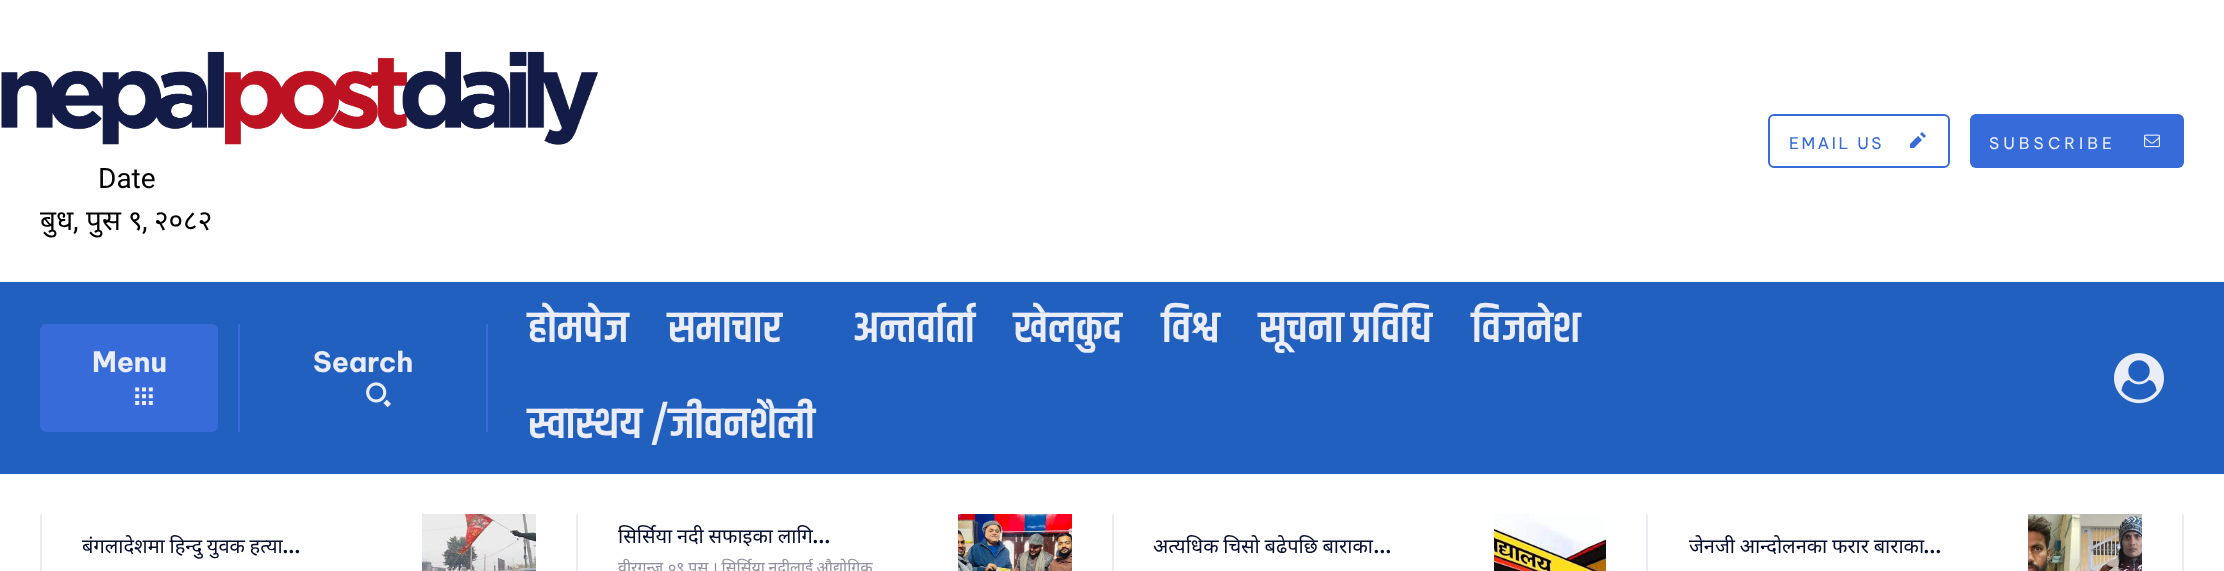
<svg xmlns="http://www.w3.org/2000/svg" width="2224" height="571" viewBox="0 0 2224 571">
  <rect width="100%" height="100%" fill="#ffffff"/>
  <rect x="1769" y="115" width="180" height="52" rx="5" fill="none" stroke="#366bd9" stroke-width="2"/>
  <text x="1789" y="149" font-family="Be Vietnam Pro" font-size="16" letter-spacing="2.5" fill="#366bd9">EMAIL US</text>
  <image x="1910" y="132" width="16" height="16" href="img1.png"/>
  <rect x="1970" y="114" width="214" height="54" rx="6" fill="#366bd9"/>
  <text x="1989" y="149" font-family="Be Vietnam Pro" font-size="16" letter-spacing="4" fill="#eaecf8">SUBSCRIBE</text>
  <image x="2144" y="134" width="16" height="14" href="img2.png"/>
  <image x="1" y="51" width="597" height="94" href="img3.png"/>
  <text x="98" y="188" font-family="Roboto" font-size="28" fill="#000000">Date</text>
  <text x="40" y="230" font-family="Noto Sans" font-size="28" fill="#000000">बुध</text>
  <text x="73" y="230" font-family="Roboto" font-size="28" fill="#000000">,</text>
  <text x="86" y="230" font-family="Noto Sans" font-size="28" fill="#000000">पुस ९</text>
  <text x="154" y="230" font-family="Noto Sans" font-size="28" fill="#000000">२०८२</text>
  <text x="142" y="230" font-family="Roboto" font-size="28" fill="#000000">,</text>
  <rect x="0" y="282" width="2224" height="192" fill="#2260bf"/>
  <rect x="40" y="324" width="178" height="108" rx="6" fill="#366bd9"/>
  <text x="92" y="372" font-family="Be Vietnam Pro" font-size="28" font-weight="bold" fill="#eaecf8">Menu</text>
  <image x="135" y="387" width="18" height="18" href="img4.png"/>
  <rect x="486" y="324" width="2" height="108" fill="#366bd9"/>
  <rect x="238" y="324" width="2" height="108" fill="#366bd9"/>
  <text x="313" y="372" font-family="Be Vietnam Pro" font-size="28" font-weight="bold" fill="#eaecf8">Search</text>
  <image x="366" y="382" width="25" height="26" href="img5.png"/>
  <text x="528" y="342" font-family="Khand" font-size="44" font-weight="600" fill="#eaecf8">होमपेज</text>
  <text x="668" y="342" font-family="Khand" font-size="44" font-weight="600" fill="#eaecf8">समाचार</text>
  <text x="853" y="342" font-family="Khand" font-size="44" font-weight="600" fill="#eaecf8">अन्तर्वार्ता</text>
  <text x="1014" y="342" font-family="Khand" font-size="44" font-weight="600" fill="#eaecf8">खेलकुद</text>
  <text x="1162" y="342" font-family="Khand" font-size="44" font-weight="600" fill="#eaecf8">विश्व</text>
  <text x="1259" y="342" font-family="Khand" font-size="44" font-weight="600" fill="#eaecf8">सूचना प्रविधि</text>
  <text x="1472" y="342" font-family="Khand" font-size="44" font-weight="600" fill="#eaecf8">विजनेश</text>
  <text x="528" y="438" font-family="Khand" font-size="44" font-weight="600" fill="#eaecf8">स्वास्थय /जीवनशैली</text>
  <image x="2114" y="353" width="50" height="51" href="img6.png"/>
  <rect x="40" y="514" width="2" height="57" fill="#eaecf8"/>
  <rect x="576" y="514" width="2" height="57" fill="#eaecf8"/>
  <text x="82" y="553" word-spacing="-0.5" font-family="Noto Sans" font-size="20" fill="#060e2f">बंगलादेशमा हिन्दु युवक हत्या</text>
  <text x="282" y="553" font-family="Be Vietnam Pro" font-size="20" font-weight="bold" fill="#060e2f">...</text>
  <image x="422" y="514" width="114" height="57" href="img7.png"/>
  <rect x="1112" y="514" width="2" height="57" fill="#eaecf8"/>
  <text x="618" y="543" word-spacing="-0.5" font-family="Noto Sans" font-size="20" fill="#060e2f">सिर्सिया नदी सफाइका लागि</text>
  <text x="812" y="543" font-family="Be Vietnam Pro" font-size="20" font-weight="bold" fill="#060e2f">...</text>
  <text x="618" y="573" font-family="Noto Sans" font-size="16" fill="#9191a1">वीरगन्ज</text>
  <text x="668" y="573" word-spacing="-0.5" font-family="Noto Sans" font-size="16" fill="#9191a1">०९ पुस । सिर्सिया नदीलाई औद्योगिक</text>
  <image x="958" y="514" width="114" height="57" href="img8.png"/>
  <rect x="1646" y="514" width="2" height="57" fill="#eaecf8"/>
  <text x="1153" y="553" word-spacing="-0.5" font-family="Noto Sans" font-size="20" fill="#060e2f">अत्यधिक चिसो बढेपछि बाराका</text>
  <text x="1373" y="553" font-family="Be Vietnam Pro" font-size="20" font-weight="bold" fill="#060e2f">...</text>
  <image x="1494" y="514" width="112" height="57" href="img9.png"/>
  <rect x="2182" y="514" width="2" height="57" fill="#eaecf8"/>
  <text x="1689" y="553" word-spacing="-0.5" font-family="Noto Sans" font-size="20" fill="#060e2f">जेनजी आन्दोलनका फरार बाराका</text>
  <text x="1923" y="553" font-family="Be Vietnam Pro" font-size="20" font-weight="bold" fill="#060e2f">...</text>
  <image x="2028" y="514" width="114" height="57" href="img10.png"/>
</svg>
